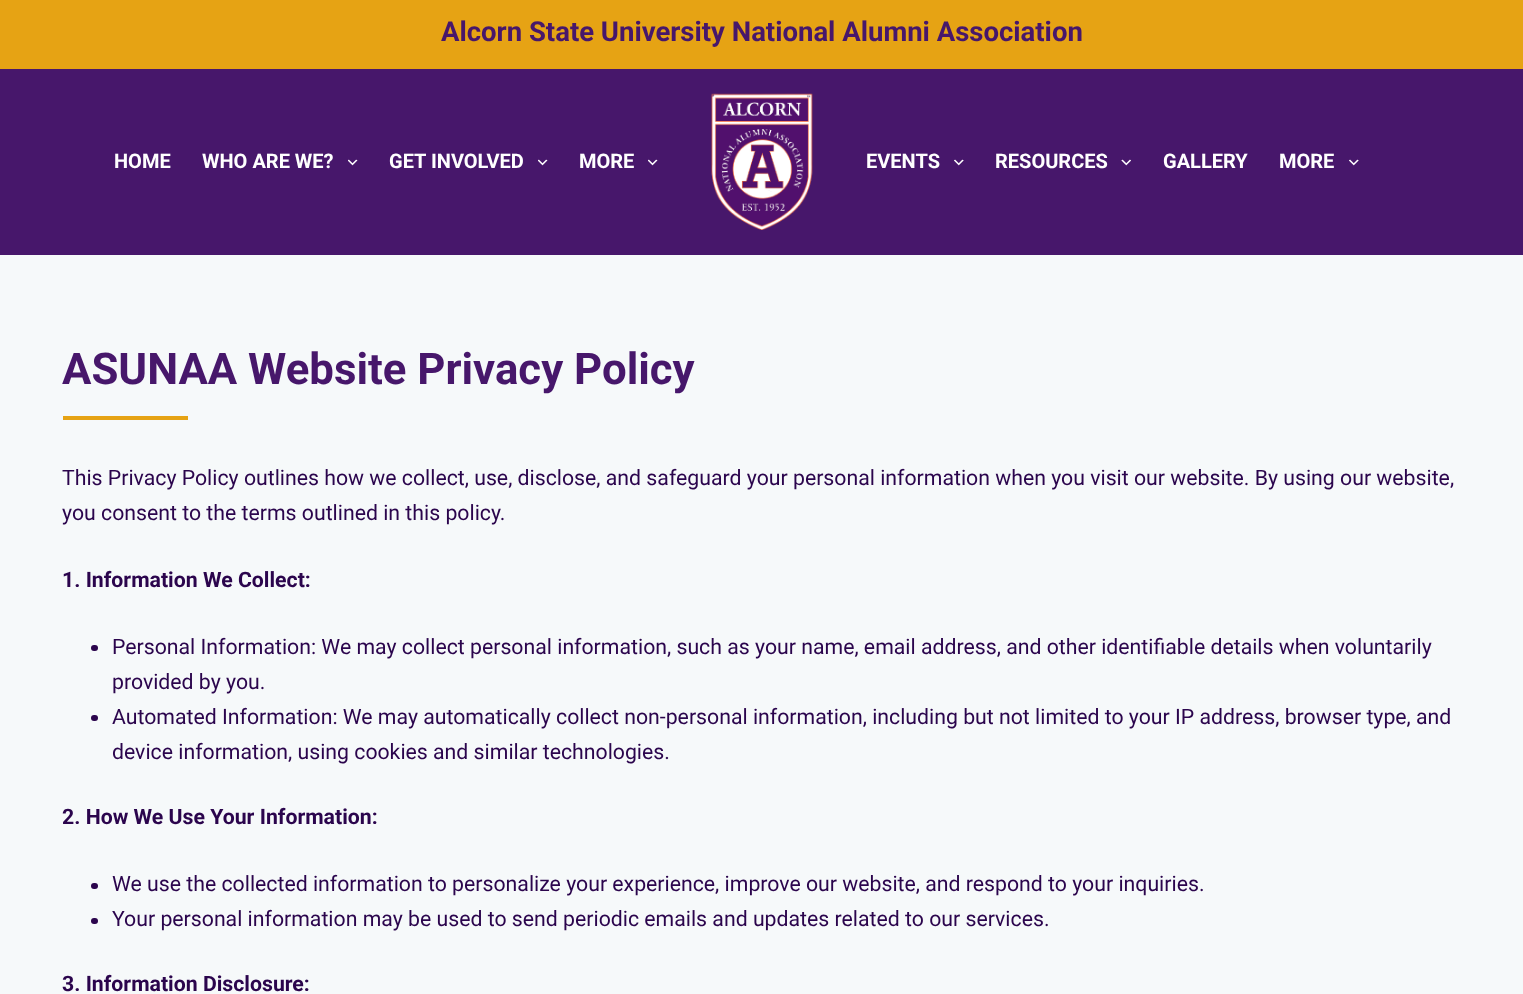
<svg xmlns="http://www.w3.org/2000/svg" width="1523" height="994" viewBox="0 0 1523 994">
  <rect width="100%" height="100%" fill="#f6f9fa"/>
  <rect x="0" y="0" width="1523" height="69" fill="#e6a314"/>
  <text x="441" y="41" font-family="Roboto" font-size="27.5" font-weight="bold" fill="#47176b">Alcorn State University National Alumni Association</text>
  <rect x="0" y="69" width="1523" height="186" fill="#47176b"/>
  <text x="114" y="168" font-family="Roboto" font-size="20" font-weight="bold" fill="#ffffff">HOME</text>
  <text x="202" y="168" font-family="Roboto" font-size="20" font-weight="bold" fill="#ffffff">WHO ARE WE?</text>
  <image x="348" y="159" width="10" height="7" href="img1.png"/>
  <text x="389" y="168" font-family="Roboto" font-size="20" font-weight="bold" fill="#ffffff">GET INVOLVED</text>
  <image x="538" y="159" width="10" height="7" href="img1.png"/>
  <text x="579" y="168" font-family="Roboto" font-size="20" font-weight="bold" fill="#ffffff">MORE</text>
  <image x="648" y="159" width="10" height="7" href="img1.png"/>
  <image x="711" y="93" width="102" height="137" href="img2.png"/>
  <text x="866" y="168" font-family="Roboto" font-size="20" font-weight="bold" fill="#ffffff">EVENTS</text>
  <image x="954" y="159" width="10" height="7" href="img3.png"/>
  <text x="995" y="168" font-family="Roboto" font-size="20" font-weight="bold" fill="#ffffff">RESOURCES</text>
  <image x="1121" y="159" width="10" height="7" href="img4.png"/>
  <text x="1163" y="168" font-family="Roboto" font-size="20" font-weight="bold" fill="#ffffff">GALLERY</text>
  <text x="1279" y="168" font-family="Roboto" font-size="20" font-weight="bold" fill="#ffffff">MORE</text>
  <image x="1349" y="159" width="10" height="7" href="img3.png"/>
  <text x="62" y="384" font-family="Roboto" font-size="43.75" font-weight="bold" fill="#47176b">ASUNAA Website Privacy Policy</text>
  <rect x="63" y="416" width="125" height="4" fill="#e6a314"/>
  <text x="62" y="485" font-family="Roboto" font-size="21.25" fill="#2b054d">This Privacy Policy outlines how we collect, use, disclose, and safeguard your personal information when you visit our website. By using our website,</text>
  <text x="62" y="520" font-family="Roboto" font-size="21.25" fill="#2b054d">you consent to the terms outlined in this policy.</text>
  <text x="62" y="587" font-family="Roboto" font-size="21.25" font-weight="bold" fill="#2b054d">1. Information We Collect:</text>
  <rect x="91" y="645" width="7" height="6" rx="3" fill="#2b054d"/>
  <text x="112" y="654" font-family="Roboto" font-size="21.25" fill="#2b054d">Personal Information: We may collect personal information, such as your name, email address, and other identifiable details when voluntarily</text>
  <text x="112" y="689" font-family="Roboto" font-size="21.25" fill="#2b054d">provided by you.</text>
  <rect x="91" y="715" width="7" height="6" rx="3" fill="#2b054d"/>
  <text x="112" y="724" font-family="Roboto" font-size="21.25" fill="#2b054d">Automated Information: We may automatically collect non-personal information, including but not limited to your IP address, browser type, and</text>
  <text x="112" y="759" font-family="Roboto" font-size="21.25" fill="#2b054d">device information, using cookies and similar technologies.</text>
  <text x="62" y="824" font-family="Roboto" font-size="21.25" font-weight="bold" fill="#2b054d">2. How We Use Your Information:</text>
  <rect x="91" y="883" width="7" height="6" rx="3" fill="#2b054d"/>
  <text x="112" y="891" font-family="Roboto" font-size="21.25" fill="#2b054d">We use the collected information to personalize your experience, improve our website, and respond to your inquiries.</text>
  <rect x="91" y="918" width="7" height="6" rx="3" fill="#2b054d"/>
  <text x="112" y="926" font-family="Roboto" font-size="21.25" fill="#2b054d">Your personal information may be used to send periodic emails and updates related to our services.</text>
  <text x="62" y="991" font-family="Roboto" font-size="21.25" font-weight="bold" fill="#2b054d">3. Information Disclosure:</text>
</svg>
